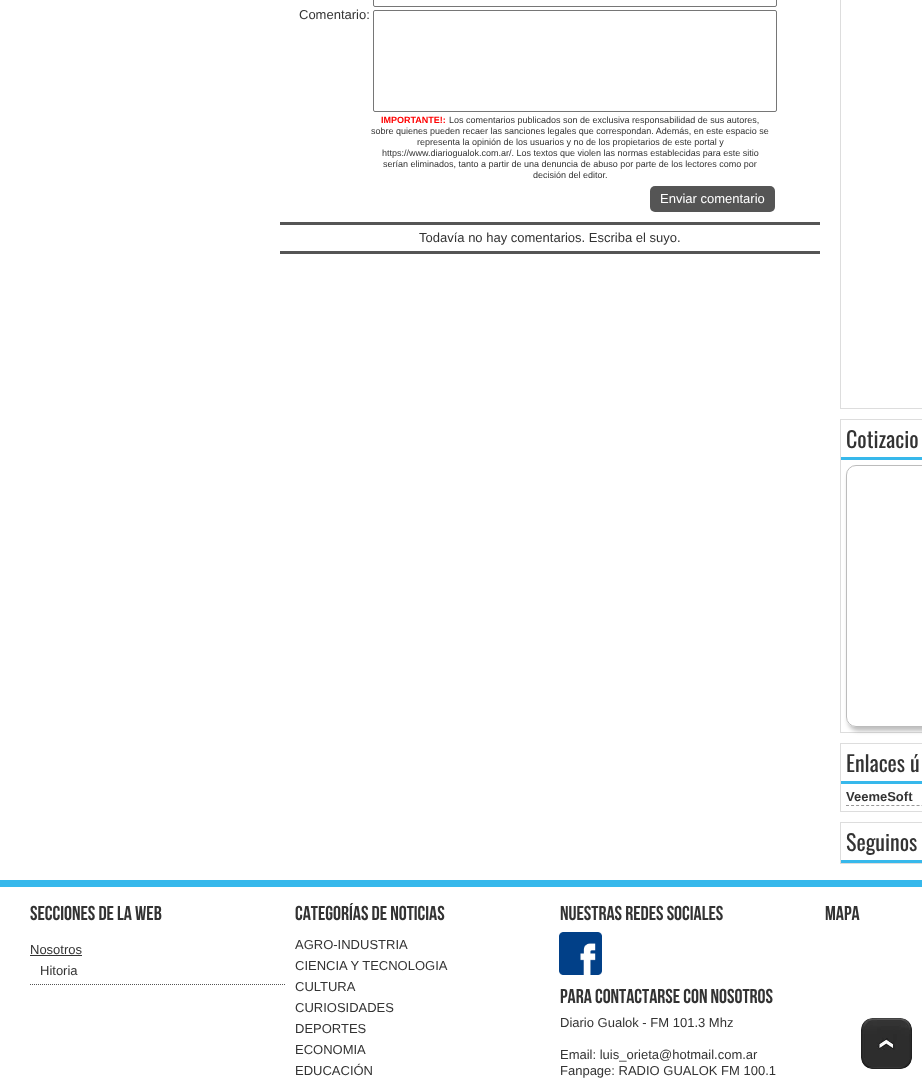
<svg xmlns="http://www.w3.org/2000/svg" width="922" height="1079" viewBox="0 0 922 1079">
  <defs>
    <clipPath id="clip1"><path d="M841 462H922V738H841ZM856 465H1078C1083.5 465 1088 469.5 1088 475V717C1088 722.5 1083.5 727 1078 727H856C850.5 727 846 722.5 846 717V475C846 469.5 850.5 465 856 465Z" clip-rule="evenodd"/></clipPath>
    <filter id="blur1" x="-50%" y="-200%" width="200%" height="500%"><feGaussianBlur stdDeviation="2"/></filter>
  </defs>
  <rect width="100%" height="100%" fill="#ffffff"/>
  <rect x="373.5" y="-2.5" width="403" height="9" rx="1.5" fill="none" stroke="#767676"/>
  <text x="299" y="19" font-family="Liberation Sans" font-size="13" fill="#333333">Comentario:</text>
  <rect x="373.5" y="10.5" width="403" height="101" rx="1.5" fill="none" stroke="#767676"/>
  <text x="381" y="123" font-family="Liberation Sans" font-size="9" font-weight="bold" fill="#ff0000">IMPORTANTE!:</text>
  <text x="449" y="123" font-family="Liberation Sans" font-size="9" fill="#333333">Los comentarios publicados son de exclusiva responsabilidad de sus autores,</text>
  <text x="371" y="134" font-family="Liberation Sans" font-size="9" fill="#333333">sobre quienes pueden recaer las sanciones legales que correspondan. Además, en este espacio se</text>
  <text x="417" y="145" font-family="Liberation Sans" font-size="9" fill="#333333">representa la opinión de los usuarios y no de los propietarios de este portal y</text>
  <text x="382" y="156" font-family="Liberation Sans" font-size="9" fill="#333333">https://www.diariogualok.com.ar/. Los textos que violen las normas establecidas para este sitio</text>
  <text x="383" y="167" font-family="Liberation Sans" font-size="9" fill="#333333">serían eliminados, tanto a partir de una denuncia de abuso por parte de los lectores como por</text>
  <text x="533" y="178" font-family="Liberation Sans" font-size="9" fill="#333333">decisión del editor.</text>
  <rect x="650" y="186" width="125" height="26" rx="5" fill="#555555"/>
  <text x="660" y="203" font-family="Liberation Sans" font-size="13" fill="#ffffff">Enviar comentario</text>
  <rect x="280" y="222" width="540" height="3" fill="#555555"/>
  <rect x="280" y="251" width="540" height="3" fill="#555555"/>
  <text x="419" y="242" font-family="Liberation Sans" font-size="13" fill="#333333">Todavía no hay comentarios. Escriba el suyo.</text>
  <rect x="840.5" y="-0.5" width="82" height="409" fill="none" stroke="#dddddd"/>
  <rect x="840.5" y="419.5" width="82" height="313" fill="none" stroke="#dddddd"/>
  <rect x="841" y="457" width="81" height="3" fill="#37b8eb"/>
  <text x="846" y="448" font-family="Oswald" font-size="22" fill="#333333">Cotizacio</text>
  <g clip-path="url(#clip1)">
    <rect x="848" y="469" width="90" height="262" rx="10" fill="#000000" fill-opacity="0.25" filter="url(#blur1)"/>
  </g>
  <rect x="846.5" y="465.5" width="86" height="261" rx="9.5" fill="none" stroke="#bcbcbc"/>
  <rect x="840.5" y="743.5" width="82" height="68" fill="none" stroke="#dddddd"/>
  <rect x="841" y="781" width="81" height="3" fill="#37b8eb"/>
  <text x="846" y="772" font-family="Oswald" font-size="22" fill="#333333">Enlaces ú</text>
  <path d="M846 805.5H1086" fill="none" stroke="#999999" stroke-dasharray="3 2.04"/>
  <text x="846" y="801" font-family="Liberation Sans" font-size="13" font-weight="bold" fill="#333333">VeemeSoft</text>
  <rect x="840.5" y="822.5" width="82" height="41" fill="none" stroke="#dddddd"/>
  <rect x="841" y="860" width="81" height="3" fill="#37b8eb"/>
  <text x="846" y="851" font-family="Oswald" font-size="22" fill="#333333">Seguinos</text>
  <rect x="0" y="880" width="922" height="7" fill="#37b8eb"/>
  <text x="30" y="920" font-family="Bebas Neue" font-size="20" fill="#333333">Secciones de la web</text>
  <path d="M30 984.5H285" fill="none" stroke="#555555" stroke-dasharray="1 1"/>
  <text x="30" y="954" font-family="Liberation Sans" font-size="13" fill="#333333">Nosotros</text>
  <rect x="30" y="955" width="52" height="1" fill="#333333"/>
  <text x="40" y="975" font-family="Liberation Sans" font-size="13" fill="#333333">Hitoria</text>
  <text x="295" y="920" font-family="Bebas Neue" font-size="20" fill="#333333">Categorías de noticias</text>
  <text x="295" y="949" font-family="Liberation Sans" font-size="13" fill="#333333">AGRO-INDUSTRIA</text>
  <text x="295" y="970" font-family="Liberation Sans" font-size="13" fill="#333333">CIENCIA Y TECNOLOGIA</text>
  <text x="295" y="991" font-family="Liberation Sans" font-size="13" fill="#333333">CULTURA</text>
  <text x="295" y="1012" font-family="Liberation Sans" font-size="13" fill="#333333">CURIOSIDADES</text>
  <text x="295" y="1033" font-family="Liberation Sans" font-size="13" fill="#333333">DEPORTES</text>
  <text x="295" y="1054" font-family="Liberation Sans" font-size="13" fill="#333333">ECONOMIA</text>
  <text x="295" y="1075" font-family="Liberation Sans" font-size="13" fill="#333333">EDUCACIÓN</text>
  <text x="560" y="920" font-family="Bebas Neue" font-size="20" fill="#333333">Nuestras redes sociales</text>
  <image x="559" y="932" width="43" height="43" href="img1.png"/>
  <text x="560" y="1003" font-family="Bebas Neue" font-size="20" fill="#333333">Para contactarse con nosotros</text>
  <text x="560" y="1027" font-family="Liberation Sans" font-size="13" fill="#333333">Diario Gualok - FM 101.3 Mhz</text>
  <text x="560" y="1059" font-family="Liberation Sans" font-size="13" fill="#333333">Email: luis_orieta@hotmail.com.ar</text>
  <text x="560" y="1075" font-family="Liberation Sans" font-size="13" fill="#333333">Fanpage: RADIO GUALOK FM 100.1</text>
  <text x="825" y="920" font-family="Bebas Neue" font-size="20" fill="#333333">Mapa</text>
  <image x="861" y="1018" width="51" height="51" href="img2.png"/>
</svg>
